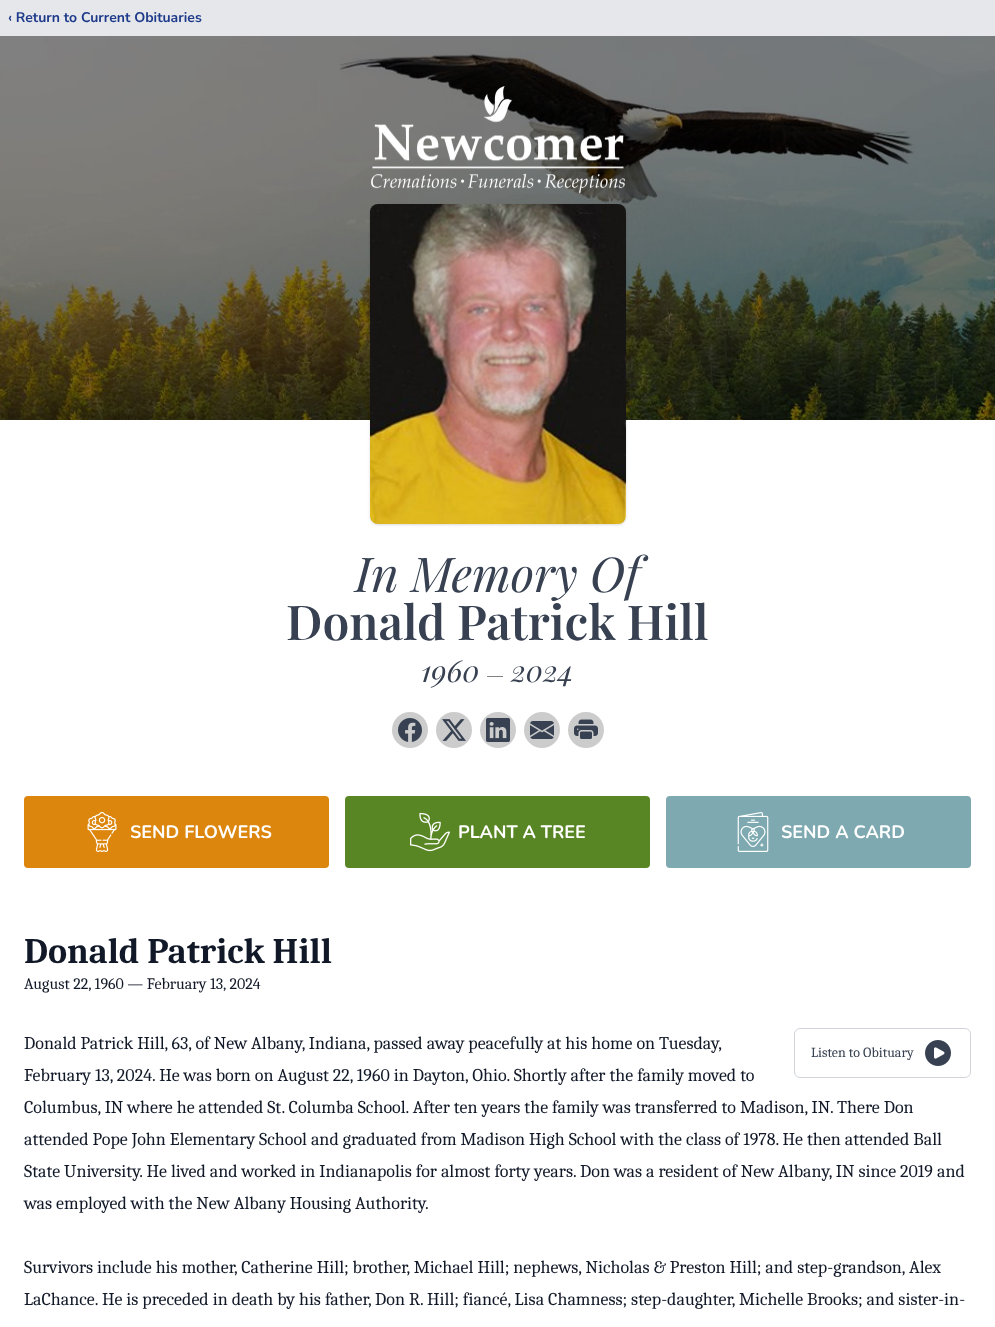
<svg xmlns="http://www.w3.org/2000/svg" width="995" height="1327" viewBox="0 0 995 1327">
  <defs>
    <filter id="blur1" x="-50%" y="-200%" width="200%" height="500%"><feGaussianBlur stdDeviation="1"/></filter>
    <filter id="blur2" x="-50%" y="-200%" width="200%" height="500%"><feGaussianBlur stdDeviation="1.5"/></filter>
  </defs>
  <rect width="100%" height="100%" fill="#ffffff"/>
  <rect x="0" y="0" width="995" height="36" fill="#e5e7eb"/>
  <text x="8" y="22" font-family="Nunito" font-size="14" font-weight="bold" fill="#1e3a8a">‹ Return to Current Obituaries</text>
  <image x="0" y="36" width="995" height="384" href="img1.png"/>
  <image x="371" y="86" width="254" height="108" href="img2.png"/>
  <rect x="371" y="206" width="254" height="318" rx="7" fill="#000000" fill-opacity="0.1" filter="url(#blur1)"/>
  <rect x="370" y="205" width="256" height="320" rx="8" fill="#000000" fill-opacity="0.1" filter="url(#blur2)"/>
  <image x="370" y="204" width="256" height="320" href="img3.png"/>
  <text x="355" y="592" font-family="Playfair Display" font-size="48" font-style="italic" fill="#374151">In Memory Of</text>
  <text x="286" y="640" font-family="Playfair Display" font-size="48" font-weight="600" fill="#374151">Donald Patrick Hill</text>
  <text x="421" y="682" font-family="Playfair Display" font-size="30" font-style="italic" fill="#374151">1960</text>
  <rect x="487" y="676" width="16" height="1" fill="#808080"/>
  <text x="511" y="682" font-family="Playfair Display" font-size="30" font-style="italic" fill="#374151">2024</text>
  <circle cx="410" cy="730" r="18" fill="#cccccc"/>
  <image x="398" y="718" width="24" height="24" href="img4.png"/>
  <circle cx="454" cy="730" r="18" fill="#cccccc"/>
  <image x="442" y="719" width="24" height="22" href="img5.png"/>
  <circle cx="498" cy="730" r="18" fill="#cccccc"/>
  <image x="486" y="718" width="24" height="24" href="img6.png"/>
  <circle cx="542" cy="730" r="18" fill="#cccccc"/>
  <image x="530" y="721" width="24" height="18" href="img7.png"/>
  <circle cx="586" cy="730" r="18" fill="#cccccc"/>
  <image x="574" y="719" width="24" height="20" href="img8.png"/>
  <rect x="24" y="796" width="305" height="72" rx="4" fill="#dc860d"/>
  <image x="87" y="812" width="30" height="40" href="img9.png"/>
  <text x="130" y="838" font-family="Nunito" font-size="18" font-weight="bold" fill="#ffffff">SEND FLOWERS</text>
  <rect x="345" y="796" width="305" height="72" rx="4" fill="#588624"/>
  <image x="410" y="812" width="40" height="40" href="img10.png"/>
  <text x="458" y="838" font-family="Nunito" font-size="18" font-weight="bold" fill="#ffffff">PLANT A TREE</text>
  <rect x="666" y="796" width="305" height="72" rx="4" fill="#7ea9b0"/>
  <image x="737" y="812" width="32" height="40" href="img11.png"/>
  <text x="781" y="838" font-family="Nunito" font-size="18" font-weight="bold" fill="#ffffff">SEND A CARD</text>
  <text x="24" y="963" font-family="Caladea" font-size="36" font-weight="bold" fill="#111827">Donald Patrick Hill</text>
  <text x="24" y="989" font-family="Caladea" font-size="16" fill="#111827">August 22, 1960 — February 13, 2024</text>
  <text x="24" y="1049" font-family="Caladea" font-size="18" fill="#111827">Donald Patrick Hill, 63, of New Albany, Indiana, passed away peacefully at his home on Tuesday,</text>
  <text x="24" y="1081" font-family="Caladea" font-size="18" fill="#111827">February 13, 2024. He was born on August 22, 1960 in Dayton, Ohio. Shortly after the family moved to</text>
  <text x="24" y="1113" font-family="Caladea" font-size="18" fill="#111827">Columbus, IN where he attended St. Columba School. After ten years the family was transferred to Madison, IN. There Don</text>
  <text x="24" y="1145" font-family="Caladea" font-size="18" fill="#111827">attended Pope John Elementary School and graduated from Madison High School with the class of 1978. He then attended Ball</text>
  <text x="24" y="1177" font-family="Caladea" font-size="18" fill="#111827">State University. He lived and worked in Indianapolis for almost forty years. Don was a resident of New Albany, IN since 2019 and</text>
  <text x="24" y="1209" font-family="Caladea" font-size="18" fill="#111827">was employed with the New Albany Housing Authority.</text>
  <text x="24" y="1273" font-family="Caladea" font-size="18" fill="#111827">Survivors include his mother, Catherine Hill; brother, Michael Hill; nephews, Nicholas &amp; Preston Hill; and step-grandson, Alex</text>
  <text x="24" y="1305" font-family="Caladea" font-size="18" fill="#111827">LaChance. He is preceded in death by his father, Don R. Hill; fiancé, Lisa Chamness; step-daughter, Michelle Brooks; and sister-in-</text>
  <rect x="794.5" y="1028.5" width="176" height="49" rx="5.5" fill="none" stroke="#d1d5db"/>
  <text x="811" y="1057" font-family="Caladea" font-size="14" fill="#374151">Listen to Obituary</text>
  <image x="925" y="1040" width="26" height="26" href="img12.png"/>
</svg>
